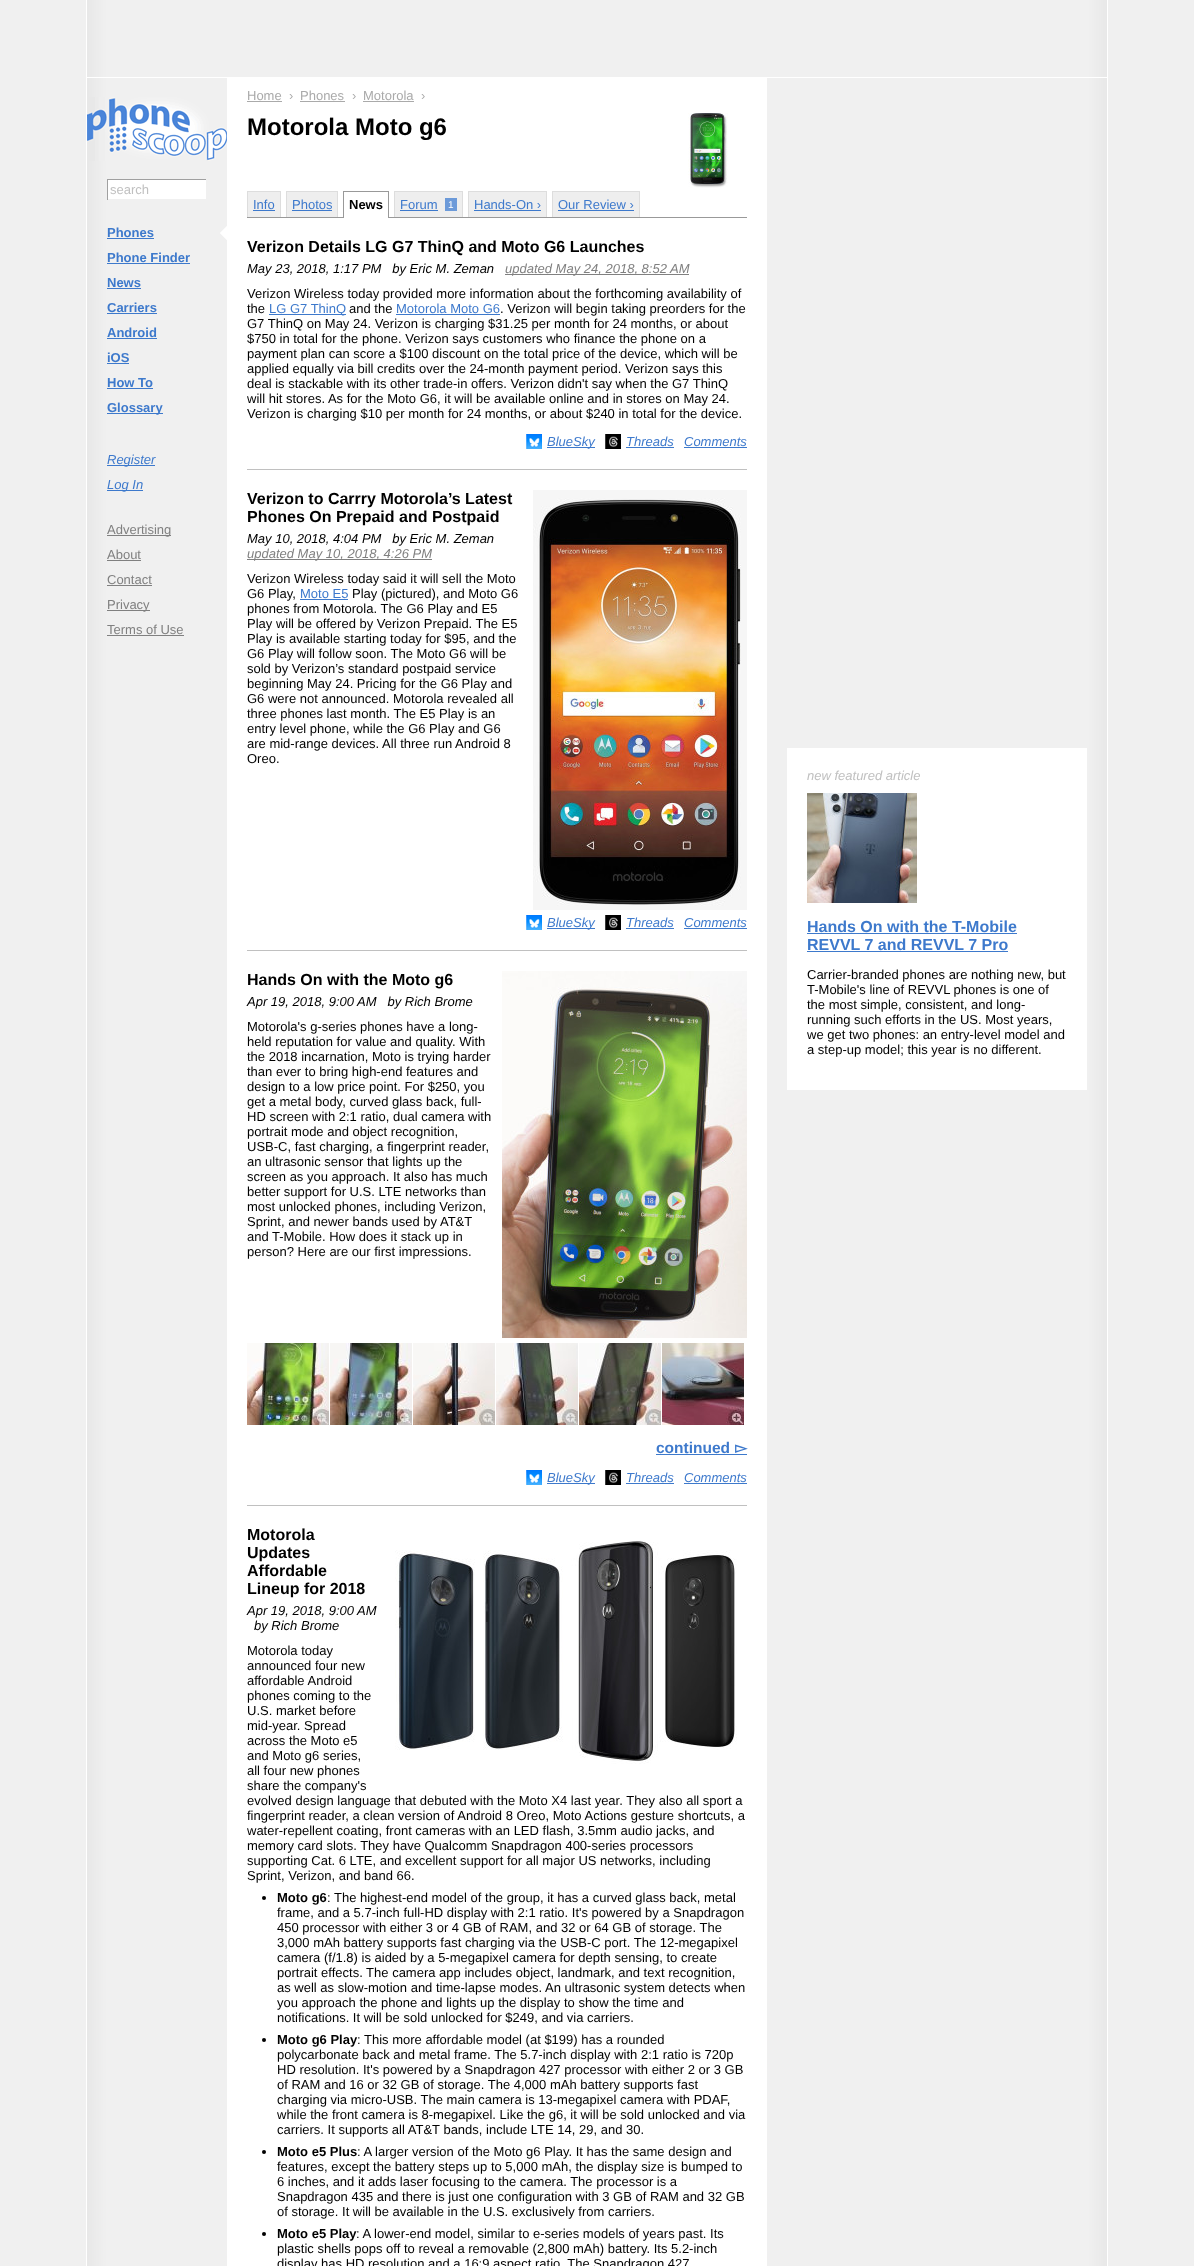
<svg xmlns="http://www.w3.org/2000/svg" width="1194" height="2266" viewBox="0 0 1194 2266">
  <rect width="100%" height="100%" fill="#f0f0f0"/>
  <image x="86" y="0" width="1022" height="2266" href="img1.png"/>
  <image x="87" y="0" width="1020" height="77" href="img2.png"/>
  <rect x="87" y="77" width="1020" height="1" fill="#ffffff"/>
  <image x="87" y="97" width="140" height="64" href="img3.png"/>
  <rect x="108" y="180" width="98" height="19" fill="#ffffff"/>
  <rect x="107" y="179" width="100" height="1" fill="#a0a0a0"/>
  <rect x="206" y="179" width="1" height="1" fill="#f0f0f0"/>
  <rect x="107" y="179" width="1" height="21" fill="#a0a0a0"/>
  <text x="110" y="194" font-family="Arimo" font-size="13" fill="#c0c0c0">search</text>
  <image x="220" y="226" width="7" height="14" href="img4.png"/>
  <text x="107" y="237" font-family="Arimo" font-size="13" font-weight="bold" fill="#3d79cc">Phones</text>
  <rect x="107" y="238" width="47" height="1" fill="#3d79cc"/>
  <text x="107" y="262" font-family="Arimo" font-size="13" font-weight="bold" fill="#3d79cc">Phone Finder</text>
  <rect x="107" y="263" width="83" height="1" fill="#3d79cc"/>
  <text x="107" y="287" font-family="Arimo" font-size="13" font-weight="bold" fill="#3d79cc">News</text>
  <rect x="107" y="288" width="34" height="1" fill="#3d79cc"/>
  <text x="107" y="312" font-family="Arimo" font-size="13" font-weight="bold" fill="#3d79cc">Carriers</text>
  <rect x="107" y="313" width="50" height="1" fill="#3d79cc"/>
  <text x="107" y="337" font-family="Arimo" font-size="13" font-weight="bold" fill="#3d79cc">Android</text>
  <rect x="107" y="338" width="50" height="1" fill="#3d79cc"/>
  <text x="107" y="362" font-family="Arimo" font-size="13" font-weight="bold" fill="#3d79cc">iOS</text>
  <rect x="107" y="363" width="22" height="1" fill="#3d79cc"/>
  <text x="107" y="387" font-family="Arimo" font-size="13" font-weight="bold" fill="#3d79cc">How To</text>
  <rect x="107" y="388" width="46" height="1" fill="#3d79cc"/>
  <rect x="107" y="413" width="56" height="1" fill="#3d79cc"/>
  <text x="107" y="412" font-family="Arimo" font-size="13" font-weight="bold" fill="#3d79cc">Glossary</text>
  <rect x="107" y="465" width="48" height="1" fill="#3d79cc"/>
  <text x="107" y="464" font-family="Arimo" font-size="13" font-style="italic" fill="#3d79cc">Register</text>
  <rect x="107" y="490" width="36" height="1" fill="#3d79cc"/>
  <text x="107" y="489" font-family="Arimo" font-size="13" font-style="italic" fill="#3d79cc">Log In</text>
  <rect x="107" y="535" width="64" height="1" fill="#808080"/>
  <text x="107" y="534" font-family="Arimo" font-size="13" fill="#808080">Advertising</text>
  <text x="107" y="559" font-family="Arimo" font-size="13" fill="#808080">About</text>
  <rect x="107" y="560" width="34" height="1" fill="#808080"/>
  <text x="107" y="584" font-family="Arimo" font-size="13" fill="#808080">Contact</text>
  <rect x="107" y="585" width="45" height="1" fill="#808080"/>
  <rect x="107" y="610" width="43" height="1" fill="#808080"/>
  <text x="107" y="609" font-family="Arimo" font-size="13" fill="#808080">Privacy</text>
  <text x="107" y="634" font-family="Arimo" font-size="13" fill="#808080">Terms of Use</text>
  <rect x="107" y="635" width="77" height="1" fill="#808080"/>
  <text x="247" y="100" font-family="Arimo" font-size="13" fill="#aaaaaa">Home</text>
  <rect x="247" y="101" width="35" height="1" fill="#aaaaaa"/>
  <text x="289" y="100" font-family="Arimo" font-size="13" fill="#aaaaaa">›</text>
  <text x="300" y="100" font-family="Arimo" font-size="13" fill="#aaaaaa">Phones</text>
  <rect x="300" y="101" width="45" height="1" fill="#aaaaaa"/>
  <text x="352" y="100" font-family="Arimo" font-size="13" fill="#aaaaaa">›</text>
  <text x="363" y="100" font-family="Arimo" font-size="13" fill="#aaaaaa">Motorola</text>
  <rect x="363" y="101" width="51" height="1" fill="#aaaaaa"/>
  <text x="421" y="100" font-family="Arimo" font-size="13" fill="#aaaaaa">›</text>
  <text x="247" y="135" font-family="Arimo" font-size="24" font-weight="bold" fill="#000000">Motorola Moto g6</text>
  <image x="688" y="113" width="40" height="75" href="img5.png"/>
  <rect x="248" y="192" width="32" height="25" fill="#eeeeee"/>
  <rect x="247" y="191" width="34" height="1" fill="#dddddd"/>
  <rect x="280" y="191" width="1" height="26" fill="#dddddd"/>
  <rect x="247" y="191" width="1" height="26" fill="#dddddd"/>
  <text x="253" y="209" font-family="Arimo" font-size="13" fill="#3d79cc">Info</text>
  <rect x="253" y="210" width="22" height="1" fill="#3d79cc"/>
  <rect x="287" y="192" width="50" height="25" fill="#eeeeee"/>
  <rect x="286" y="191" width="52" height="1" fill="#dddddd"/>
  <rect x="337" y="191" width="1" height="26" fill="#dddddd"/>
  <rect x="286" y="191" width="1" height="26" fill="#dddddd"/>
  <text x="292" y="209" font-family="Arimo" font-size="13" fill="#3d79cc">Photos</text>
  <rect x="292" y="210" width="40" height="1" fill="#3d79cc"/>
  <rect x="247" y="217" width="500" height="1" fill="#999999"/>
  <rect x="344" y="217" width="44" height="1" fill="#ffffff"/>
  <rect x="343" y="191" width="46" height="1" fill="#999999"/>
  <rect x="388" y="191" width="1" height="27" fill="#999999"/>
  <rect x="343" y="191" width="1" height="27" fill="#999999"/>
  <text x="349" y="209" font-family="Arimo" font-size="13" font-weight="bold" fill="#000000">News</text>
  <rect x="395" y="192" width="67" height="25" fill="#eeeeee"/>
  <rect x="394" y="191" width="69" height="1" fill="#dddddd"/>
  <rect x="462" y="191" width="1" height="26" fill="#dddddd"/>
  <rect x="394" y="191" width="1" height="26" fill="#dddddd"/>
  <text x="400" y="209" font-family="Arimo" font-size="13" fill="#3d79cc">Forum</text>
  <rect x="400" y="210" width="38" height="1" fill="#3d79cc"/>
  <rect x="445" y="198" width="12" height="13" fill="#6c9ad9"/>
  <text x="448" y="208" font-family="Arimo" font-size="10" fill="#ffffff">1</text>
  <rect x="469" y="192" width="77" height="25" fill="#eeeeee"/>
  <rect x="468" y="191" width="79" height="1" fill="#dddddd"/>
  <rect x="546" y="191" width="1" height="26" fill="#dddddd"/>
  <rect x="468" y="191" width="1" height="26" fill="#dddddd"/>
  <text x="474" y="209" font-family="Arimo" font-size="13" fill="#3d79cc">Hands-On ›</text>
  <rect x="474" y="210" width="67" height="1" fill="#3d79cc"/>
  <rect x="553" y="192" width="86" height="25" fill="#eeeeee"/>
  <rect x="552" y="191" width="88" height="1" fill="#dddddd"/>
  <rect x="639" y="191" width="1" height="26" fill="#dddddd"/>
  <rect x="552" y="191" width="1" height="26" fill="#dddddd"/>
  <text x="558" y="209" font-family="Arimo" font-size="13" fill="#3d79cc">Our Review ›</text>
  <rect x="558" y="210" width="76" height="1" fill="#3d79cc"/>
  <text x="247" y="252" font-family="Arimo" font-size="16" font-weight="bold" fill="#000000">Verizon Details LG G7 ThinQ and Moto G6 Launches</text>
  <text x="247" y="273" font-family="Arimo" font-size="13" font-style="italic" fill="#000000" xml:space="preserve">May 23, 2018, 1:17 PM   by Eric M. Zeman</text>
  <rect x="505" y="274" width="184" height="1" fill="#808080"/>
  <text x="505" y="273" font-family="Arimo" font-size="13" font-style="italic" fill="#808080">updated May 24, 2018, 8:52 AM</text>
  <text x="247" y="298" font-family="Arimo" font-size="13" fill="#000000">Verizon Wireless today provided more information about the forthcoming availability of</text>
  <text x="247" y="313" font-family="Arimo" font-size="13" fill="#000000">the</text>
  <rect x="269" y="314" width="77" height="1" fill="#3d79cc"/>
  <text x="269" y="313" font-family="Arimo" font-size="13" fill="#3d79cc">LG G7 ThinQ</text>
  <text x="349" y="313" font-family="Arimo" font-size="13" fill="#000000">and the</text>
  <text x="396" y="313" font-family="Arimo" font-size="13" fill="#3d79cc">Motorola Moto G6</text>
  <rect x="396" y="314" width="104" height="1" fill="#3d79cc"/>
  <text x="500" y="313" font-family="Arimo" font-size="13" fill="#000000">. Verizon will begin taking preorders for the</text>
  <text x="247" y="328" font-family="Arimo" font-size="13" fill="#000000">G7 ThinQ on May 24. Verizon is charging $31.25 per month for 24 months, or about</text>
  <text x="247" y="343" font-family="Arimo" font-size="13" fill="#000000">$750 in total for the phone. Verizon says customers who finance the phone on a</text>
  <text x="247" y="358" font-family="Arimo" font-size="13" fill="#000000">payment plan can score a $100 discount on the total price of the device, which will be</text>
  <text x="247" y="373" font-family="Arimo" font-size="13" fill="#000000">applied equally via bill credits over the 24-month payment period. Verizon says this</text>
  <text x="247" y="388" font-family="Arimo" font-size="13" fill="#000000">deal is stackable with its other trade-in offers. Verizon didn't say when the G7 ThinQ</text>
  <text x="247" y="403" font-family="Arimo" font-size="13" fill="#000000">will hit stores. As for the Moto G6, it will be available online and in stores on May 24.</text>
  <text x="247" y="418" font-family="Arimo" font-size="13" fill="#000000">Verizon is charging $10 per month for 24 months, or about $240 in total for the device.</text>
  <image x="526" y="434" width="16" height="15" href="img6.png"/>
  <rect x="547" y="447" width="48" height="1" fill="#3d79cc"/>
  <text x="547" y="446" font-family="Arimo" font-size="13" font-style="italic" fill="#3d79cc">BlueSky</text>
  <image x="605" y="434" width="16" height="15" href="img7.png"/>
  <text x="626" y="446" font-family="Arimo" font-size="13" font-style="italic" fill="#3d79cc">Threads</text>
  <rect x="626" y="447" width="48" height="1" fill="#3d79cc"/>
  <text x="684" y="446" font-family="Arimo" font-size="13" font-style="italic" fill="#3d79cc">Comments</text>
  <rect x="684" y="447" width="63" height="1" fill="#3d79cc"/>
  <rect x="247" y="469" width="500" height="1" fill="#c0c0c0"/>
  <text x="247" y="504" font-family="Arimo" font-size="16" font-weight="bold" fill="#000000">Verizon to Carrry Motorola’s Latest</text>
  <text x="247" y="522" font-family="Arimo" font-size="16" font-weight="bold" fill="#000000">Phones On Prepaid and Postpaid</text>
  <image x="533" y="490" width="214" height="420" href="img8.png"/>
  <text x="247" y="543" font-family="Arimo" font-size="13" font-style="italic" fill="#000000" xml:space="preserve">May 10, 2018, 4:04 PM   by Eric M. Zeman</text>
  <rect x="247" y="559" width="185" height="1" fill="#808080"/>
  <text x="247" y="558" font-family="Arimo" font-size="13" font-style="italic" fill="#808080">updated May 10, 2018, 4:26 PM</text>
  <text x="247" y="583" font-family="Arimo" font-size="13" fill="#000000">Verizon Wireless today said it will sell the Moto</text>
  <text x="247" y="598" font-family="Arimo" font-size="13" fill="#000000">G6 Play,</text>
  <text x="300" y="598" font-family="Arimo" font-size="13" fill="#3d79cc">Moto E5</text>
  <rect x="300" y="599" width="48" height="1" fill="#3d79cc"/>
  <text x="352" y="598" font-family="Arimo" font-size="13" fill="#000000">Play (pictured), and Moto G6</text>
  <text x="247" y="613" font-family="Arimo" font-size="13" fill="#000000">phones from Motorola. The G6 Play and E5</text>
  <text x="247" y="628" font-family="Arimo" font-size="13" fill="#000000">Play will be offered by Verizon Prepaid. The E5</text>
  <text x="247" y="643" font-family="Arimo" font-size="13" fill="#000000">Play is available starting today for $95, and the</text>
  <text x="247" y="658" font-family="Arimo" font-size="13" fill="#000000">G6 Play will follow soon. The Moto G6 will be</text>
  <text x="247" y="673" font-family="Arimo" font-size="13" fill="#000000">sold by Verizon’s standard postpaid service</text>
  <text x="247" y="688" font-family="Arimo" font-size="13" fill="#000000">beginning May 24. Pricing for the G6 Play and</text>
  <text x="247" y="703" font-family="Arimo" font-size="13" fill="#000000">G6 were not announced. Motorola revealed all</text>
  <text x="247" y="718" font-family="Arimo" font-size="13" fill="#000000">three phones last month. The E5 Play is an</text>
  <text x="247" y="733" font-family="Arimo" font-size="13" fill="#000000">entry level phone, while the G6 Play and G6</text>
  <text x="247" y="748" font-family="Arimo" font-size="13" fill="#000000">are mid-range devices. All three run Android 8</text>
  <text x="247" y="763" font-family="Arimo" font-size="13" fill="#000000">Oreo.</text>
  <image x="526" y="915" width="16" height="15" href="img6.png"/>
  <rect x="547" y="928" width="48" height="1" fill="#3d79cc"/>
  <text x="547" y="927" font-family="Arimo" font-size="13" font-style="italic" fill="#3d79cc">BlueSky</text>
  <image x="605" y="915" width="16" height="15" href="img7.png"/>
  <text x="626" y="927" font-family="Arimo" font-size="13" font-style="italic" fill="#3d79cc">Threads</text>
  <rect x="626" y="928" width="48" height="1" fill="#3d79cc"/>
  <text x="684" y="927" font-family="Arimo" font-size="13" font-style="italic" fill="#3d79cc">Comments</text>
  <rect x="684" y="928" width="63" height="1" fill="#3d79cc"/>
  <rect x="247" y="950" width="500" height="1" fill="#c0c0c0"/>
  <text x="247" y="985" font-family="Arimo" font-size="16" font-weight="bold" fill="#000000">Hands On with the Moto g6</text>
  <image x="502" y="971" width="245" height="367" href="img9.png"/>
  <text x="247" y="1006" font-family="Arimo" font-size="13" font-style="italic" fill="#000000" xml:space="preserve">Apr 19, 2018, 9:00 AM   by Rich Brome</text>
  <text x="247" y="1031" font-family="Arimo" font-size="13" fill="#000000">Motorola's g-series phones have a long-</text>
  <text x="247" y="1046" font-family="Arimo" font-size="13" fill="#000000">held reputation for value and quality. With</text>
  <text x="247" y="1061" font-family="Arimo" font-size="13" fill="#000000">the 2018 incarnation, Moto is trying harder</text>
  <text x="247" y="1076" font-family="Arimo" font-size="13" fill="#000000">than ever to bring high-end features and</text>
  <text x="247" y="1091" font-family="Arimo" font-size="13" fill="#000000">design to a low price point. For $250, you</text>
  <text x="247" y="1106" font-family="Arimo" font-size="13" fill="#000000">get a metal body, curved glass back, full-</text>
  <text x="247" y="1121" font-family="Arimo" font-size="13" fill="#000000">HD screen with 2:1 ratio, dual camera with</text>
  <text x="247" y="1136" font-family="Arimo" font-size="13" fill="#000000">portrait mode and object recognition,</text>
  <text x="247" y="1151" font-family="Arimo" font-size="13" fill="#000000">USB-C, fast charging, a fingerprint reader,</text>
  <text x="247" y="1166" font-family="Arimo" font-size="13" fill="#000000">an ultrasonic sensor that lights up the</text>
  <text x="247" y="1181" font-family="Arimo" font-size="13" fill="#000000">screen as you approach. It also has much</text>
  <text x="247" y="1196" font-family="Arimo" font-size="13" fill="#000000">better support for U.S. LTE networks than</text>
  <text x="247" y="1211" font-family="Arimo" font-size="13" fill="#000000">most unlocked phones, including Verizon,</text>
  <text x="247" y="1226" font-family="Arimo" font-size="13" fill="#000000">Sprint, and newer bands used by AT&amp;T</text>
  <text x="247" y="1241" font-family="Arimo" font-size="13" fill="#000000">and T-Mobile. How does it stack up in</text>
  <text x="247" y="1256" font-family="Arimo" font-size="13" fill="#000000">person? Here are our first impressions.</text>
  <image x="247" y="1343" width="82" height="82" href="img10.png"/>
  <image x="330" y="1343" width="82" height="82" href="img11.png"/>
  <image x="413" y="1343" width="82" height="82" href="img12.png"/>
  <image x="496" y="1343" width="82" height="82" href="img13.png"/>
  <image x="579" y="1343" width="82" height="82" href="img14.png"/>
  <image x="662" y="1343" width="82" height="82" href="img15.png"/>
  <text x="656" y="1453" font-family="Arimo" font-size="15.5" font-weight="bold" fill="#3d79cc">continued</text>
  <text x="735" y="1453" font-family="DejaVu Sans" font-size="15.5" font-weight="bold" fill="#3d79cc">▻</text>
  <rect x="656" y="1454" width="91" height="1" fill="#3d79cc"/>
  <image x="526" y="1470" width="16" height="15" href="img6.png"/>
  <rect x="547" y="1483" width="48" height="1" fill="#3d79cc"/>
  <text x="547" y="1482" font-family="Arimo" font-size="13" font-style="italic" fill="#3d79cc">BlueSky</text>
  <image x="605" y="1470" width="16" height="15" href="img7.png"/>
  <text x="626" y="1482" font-family="Arimo" font-size="13" font-style="italic" fill="#3d79cc">Threads</text>
  <rect x="626" y="1483" width="48" height="1" fill="#3d79cc"/>
  <text x="684" y="1482" font-family="Arimo" font-size="13" font-style="italic" fill="#3d79cc">Comments</text>
  <rect x="684" y="1483" width="63" height="1" fill="#3d79cc"/>
  <rect x="247" y="1505" width="500" height="1" fill="#c0c0c0"/>
  <text x="247" y="1540" font-family="Arimo" font-size="16" font-weight="bold" fill="#000000">Motorola</text>
  <text x="247" y="1558" font-family="Arimo" font-size="16" font-weight="bold" fill="#000000">Updates</text>
  <text x="247" y="1576" font-family="Arimo" font-size="16" font-weight="bold" fill="#000000">Affordable</text>
  <text x="247" y="1594" font-family="Arimo" font-size="16" font-weight="bold" fill="#000000">Lineup for 2018</text>
  <image x="395" y="1540" width="342" height="224" href="img16.png"/>
  <text x="247" y="1615" font-family="Arimo" font-size="13" font-style="italic" fill="#000000">Apr 19, 2018, 9:00 AM</text>
  <text x="254" y="1630" font-family="Arimo" font-size="13" font-style="italic" fill="#000000">by Rich Brome</text>
  <text x="247" y="1655" font-family="Arimo" font-size="13" fill="#000000">Motorola today</text>
  <text x="247" y="1670" font-family="Arimo" font-size="13" fill="#000000">announced four new</text>
  <text x="247" y="1685" font-family="Arimo" font-size="13" fill="#000000">affordable Android</text>
  <text x="247" y="1700" font-family="Arimo" font-size="13" fill="#000000">phones coming to the</text>
  <text x="247" y="1715" font-family="Arimo" font-size="13" fill="#000000">U.S. market before</text>
  <text x="247" y="1730" font-family="Arimo" font-size="13" fill="#000000">mid-year. Spread</text>
  <text x="247" y="1745" font-family="Arimo" font-size="13" fill="#000000">across the Moto e5</text>
  <text x="247" y="1760" font-family="Arimo" font-size="13" fill="#000000">and Moto g6 series,</text>
  <text x="247" y="1775" font-family="Arimo" font-size="13" fill="#000000">all four new phones</text>
  <text x="247" y="1790" font-family="Arimo" font-size="13" fill="#000000">share the company's</text>
  <text x="247" y="1805" font-family="Arimo" font-size="13" fill="#000000">evolved design language that debuted with the Moto X4 last year. They also all sport a</text>
  <text x="247" y="1820" font-family="Arimo" font-size="13" fill="#000000">fingerprint reader, a clean version of Android 8 Oreo, Moto Actions gesture shortcuts, a</text>
  <text x="247" y="1835" font-family="Arimo" font-size="13" fill="#000000">water-repellent coating, front cameras with an LED flash, 3.5mm audio jacks, and</text>
  <text x="247" y="1850" font-family="Arimo" font-size="13" fill="#000000">memory card slots. They have Qualcomm Snapdragon 400-series processors</text>
  <text x="247" y="1865" font-family="Arimo" font-size="13" fill="#000000">supporting Cat. 6 LTE, and excellent support for all major US networks, including</text>
  <text x="247" y="1880" font-family="Arimo" font-size="13" fill="#000000">Sprint, Verizon, and band 66.</text>
  <circle cx="264" cy="1898" r="2" fill="#000000"/>
  <text x="277" y="1902" font-family="Arimo" font-size="13" font-weight="bold" fill="#000000">Moto g6</text>
  <text x="327" y="1902" font-family="Arimo" font-size="13" fill="#000000">: The highest-end model of the group, it has a curved glass back, metal</text>
  <text x="277" y="1917" font-family="Arimo" font-size="13" fill="#000000">frame, and a 5.7-inch full-HD display with 2:1 ratio. It's powered by a Snapdragon</text>
  <text x="277" y="1932" font-family="Arimo" font-size="13" fill="#000000">450 processor with either 3 or 4 GB of RAM, and 32 or 64 GB of storage. The</text>
  <text x="277" y="1947" font-family="Arimo" font-size="13" fill="#000000">3,000 mAh battery supports fast charging via the USB-C port. The 12-megapixel</text>
  <text x="277" y="1962" font-family="Arimo" font-size="13" fill="#000000">camera (f/1.8) is aided by a 5-megapixel camera for depth sensing, to create</text>
  <text x="277" y="1977" font-family="Arimo" font-size="13" fill="#000000">portrait effects. The camera app includes object, landmark, and text recognition,</text>
  <text x="277" y="1992" font-family="Arimo" font-size="13" fill="#000000">as well as slow-motion and time-lapse modes. An ultrasonic system detects when</text>
  <text x="277" y="2007" font-family="Arimo" font-size="13" fill="#000000">you approach the phone and lights up the display to show the time and</text>
  <text x="277" y="2022" font-family="Arimo" font-size="13" fill="#000000">notifications. It will be sold unlocked for $249, and via carriers.</text>
  <circle cx="264" cy="2040" r="2" fill="#000000"/>
  <text x="277" y="2044" font-family="Arimo" font-size="13" font-weight="bold" fill="#000000">Moto g6 Play</text>
  <text x="357" y="2044" font-family="Arimo" font-size="13" fill="#000000">: This more affordable model (at $199) has a rounded</text>
  <text x="277" y="2059" font-family="Arimo" font-size="13" fill="#000000">polycarbonate back and metal frame. The 5.7-inch display with 2:1 ratio is 720p</text>
  <text x="277" y="2074" font-family="Arimo" font-size="13" fill="#000000">HD resolution. It's powered by a Snapdragon 427 processor with either 2 or 3 GB</text>
  <text x="277" y="2089" font-family="Arimo" font-size="13" fill="#000000">of RAM and 16 or 32 GB of storage. The 4,000 mAh battery supports fast</text>
  <text x="277" y="2104" font-family="Arimo" font-size="13" fill="#000000">charging via micro-USB. The main camera is 13-megapixel camera with PDAF,</text>
  <text x="277" y="2119" font-family="Arimo" font-size="13" fill="#000000">while the front camera is 8-megapixel. Like the g6, it will be sold unlocked and via</text>
  <text x="277" y="2134" font-family="Arimo" font-size="13" fill="#000000">carriers. It supports all AT&amp;T bands, include LTE 14, 29, and 30.</text>
  <circle cx="264" cy="2152" r="2" fill="#000000"/>
  <text x="277" y="2156" font-family="Arimo" font-size="13" font-weight="bold" fill="#000000">Moto e5 Plus</text>
  <text x="357" y="2156" font-family="Arimo" font-size="13" fill="#000000">: A larger version of the Moto g6 Play. It has the same design and</text>
  <text x="277" y="2171" font-family="Arimo" font-size="13" fill="#000000">features, except the battery steps up to 5,000 mAh, the display size is bumped to</text>
  <text x="277" y="2186" font-family="Arimo" font-size="13" fill="#000000">6 inches, and it adds laser focusing to the camera. The processor is a</text>
  <text x="277" y="2201" font-family="Arimo" font-size="13" fill="#000000">Snapdragon 435 and there is just one configuration with 3 GB of RAM and 32 GB</text>
  <text x="277" y="2216" font-family="Arimo" font-size="13" fill="#000000">of storage. It will be available in the U.S. exclusively from carriers.</text>
  <circle cx="264" cy="2234" r="2" fill="#000000"/>
  <text x="277" y="2238" font-family="Arimo" font-size="13" font-weight="bold" fill="#000000">Moto e5 Play</text>
  <text x="356" y="2238" font-family="Arimo" font-size="13" fill="#000000">: A lower-end model, similar to e-series models of years past. Its</text>
  <text x="277" y="2253" font-family="Arimo" font-size="13" fill="#000000">plastic shells pops off to reveal a removable (2,800 mAh) battery. Its 5.2-inch</text>
  <text x="277" y="2268" font-family="Arimo" font-size="13" fill="#000000">display has HD resolution and a 16:9 aspect ratio. The Snapdragon 427</text>
  <rect x="787" y="748" width="300" height="342" fill="#ffffff"/>
  <text x="807" y="780" font-family="Arimo" font-size="13" font-style="italic" fill="#c0c0c0">new featured article</text>
  <image x="807" y="793" width="110" height="110" href="img17.png"/>
  <text x="807" y="932" font-family="Arimo" font-size="16" font-weight="bold" fill="#3d79cc">Hands On with the T-Mobile</text>
  <rect x="807" y="933" width="210" height="1" fill="#3d79cc"/>
  <text x="807" y="950" font-family="Arimo" font-size="16" font-weight="bold" fill="#3d79cc">REVVL 7 and REVVL 7 Pro</text>
  <rect x="807" y="951" width="201" height="1" fill="#3d79cc"/>
  <text x="807" y="979" font-family="Arimo" font-size="13" fill="#000000">Carrier-branded phones are nothing new, but</text>
  <text x="807" y="994" font-family="Arimo" font-size="13" fill="#000000">T-Mobile's line of REVVL phones is one of</text>
  <text x="807" y="1009" font-family="Arimo" font-size="13" fill="#000000">the most simple, consistent, and long-</text>
  <text x="807" y="1024" font-family="Arimo" font-size="13" fill="#000000">running such efforts in the US. Most years,</text>
  <text x="807" y="1039" font-family="Arimo" font-size="13" fill="#000000">we get two phones: an entry-level model and</text>
  <text x="807" y="1054" font-family="Arimo" font-size="13" fill="#000000">a step-up model; this year is no different.</text>
</svg>
